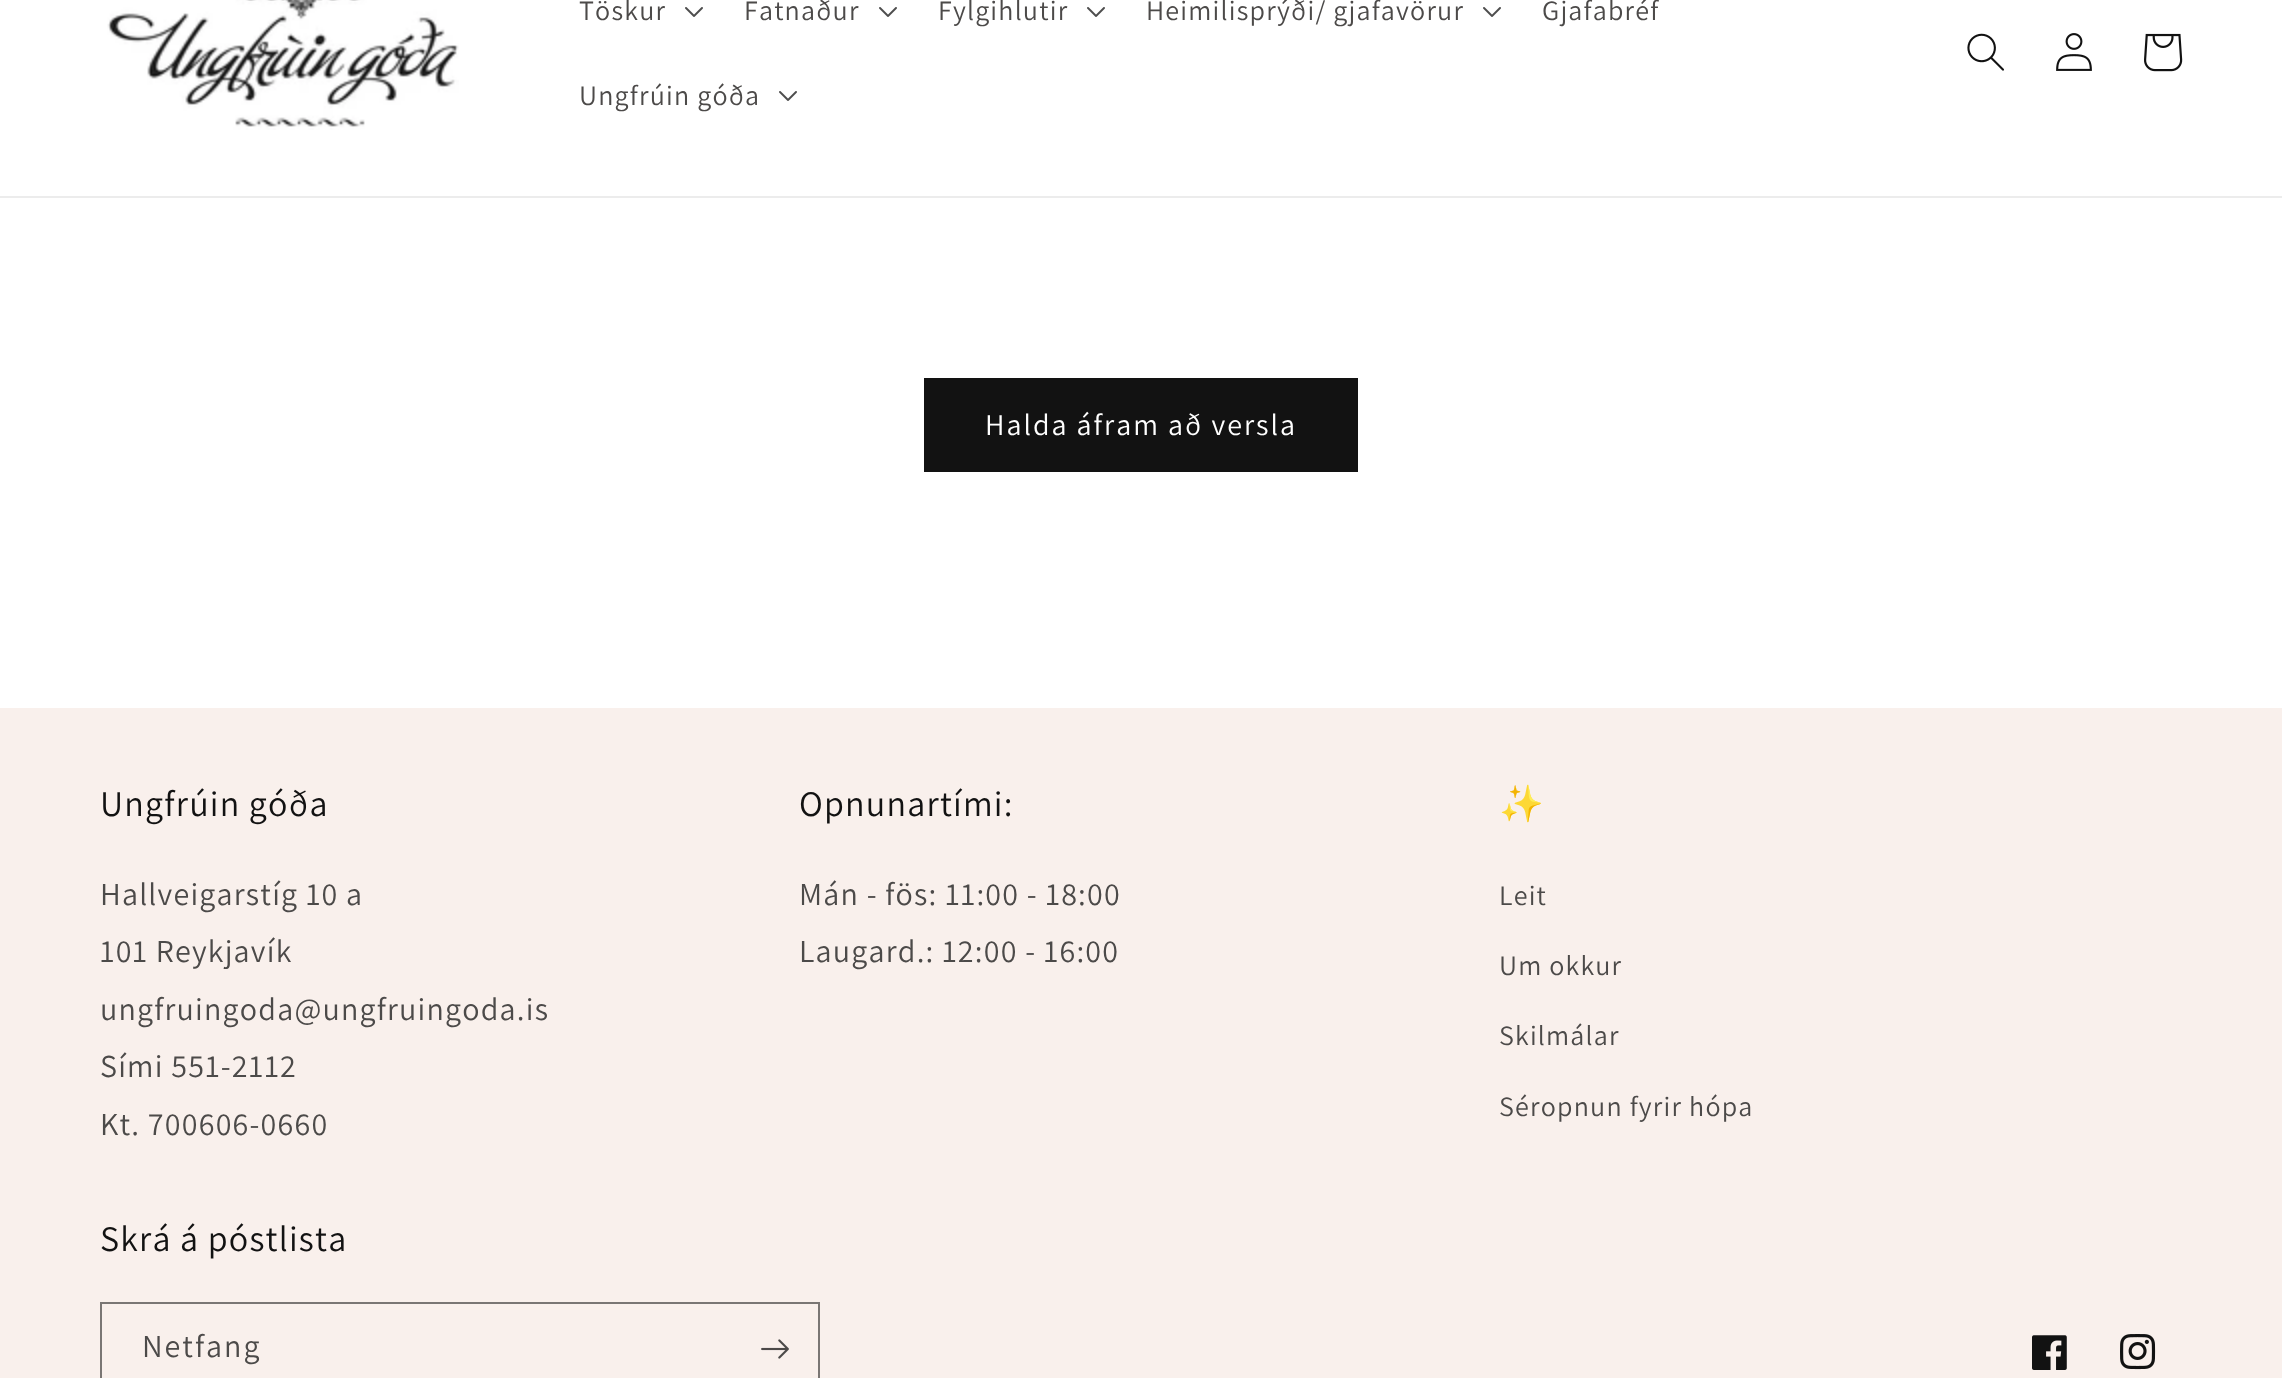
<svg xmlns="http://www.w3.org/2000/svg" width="2282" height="1378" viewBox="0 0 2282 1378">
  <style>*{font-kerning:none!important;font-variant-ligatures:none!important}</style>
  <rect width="100%" height="100%" fill="#ffffff"/>
  <rect x="0" y="196" width="2282" height="2" fill="#ececec"/>
  <image x="107" y="0" width="352" height="130" href="img1.png"/>
  <text x="579" y="20" font-family="Assistant" font-size="28" letter-spacing="1.2" fill="#4c4a49">Töskur</text>
  <image x="685" y="7" width="18" height="10" href="img2.png"/>
  <text x="744" y="20" font-family="Assistant" font-size="28" letter-spacing="1.2" fill="#4c4a49">Fatnaður</text>
  <image x="879" y="7" width="18" height="10" href="img2.png"/>
  <text x="938" y="20" font-family="Assistant" font-size="28" letter-spacing="1.2" fill="#4c4a49">Fylgihlutir</text>
  <image x="1087" y="7" width="18" height="10" href="img2.png"/>
  <text x="1146" y="20" font-family="Assistant" font-size="28" letter-spacing="1.2" fill="#4c4a49">Heimilisprýði/ gjafavörur</text>
  <image x="1483" y="7" width="18" height="10" href="img2.png"/>
  <text x="1542" y="20" font-family="Assistant" font-size="28" letter-spacing="1.2" fill="#4c4a49">Gjafabréf</text>
  <text x="579" y="105" font-family="Assistant" font-size="28" letter-spacing="1.2" fill="#4c4a49">Ungfrúin góða</text>
  <image x="779" y="91" width="18" height="10" href="img2.png"/>
  <image x="1967" y="33" width="37" height="38" href="img3.png"/>
  <image x="2056" y="33" width="36" height="38" href="img4.png"/>
  <image x="2144" y="33" width="39" height="39" href="img5.png"/>
  <rect x="924" y="378" width="434" height="94" fill="#121212"/>
  <text x="985" y="435" font-family="Assistant" font-size="30" letter-spacing="2" fill="#ffffff">Halda áfram að versla</text>
  <rect x="0" y="708" width="2282" height="670" fill="#f9f0ec"/>
  <text x="100" y="816" font-family="Assistant" font-size="36" letter-spacing="1.2" fill="#121212">Ungfrúin góða</text>
  <text x="100" y="905" font-family="Assistant" font-size="32" letter-spacing="1.2" fill="#4c4a49">Hallveigarstíg 10 a</text>
  <text x="100" y="962" font-family="Assistant" font-size="32" letter-spacing="1.2" fill="#4c4a49">101 Reykjavík</text>
  <text x="100" y="1020" font-family="Assistant" font-size="32" letter-spacing="1.2" fill="#4c4a49">ungfruingoda@ungfruingoda.is</text>
  <text x="100" y="1077" font-family="Assistant" font-size="32" letter-spacing="1.2" fill="#4c4a49">Sími 551-2112</text>
  <text x="100" y="1135" font-family="Assistant" font-size="32" letter-spacing="1.2" fill="#4c4a49">Kt. 700606-0660</text>
  <text x="799" y="816" font-family="Assistant" font-size="36" letter-spacing="1.2" fill="#121212">Opnunartími:</text>
  <text x="799" y="905" font-family="Assistant" font-size="32" letter-spacing="1.2" fill="#4c4a49">Mán - fös: 11:00 - 18:00</text>
  <text x="799" y="962" font-family="Assistant" font-size="32" letter-spacing="1.2" fill="#4c4a49">Laugard.: 12:00 - 16:00</text>
  <text x="1499" y="816" font-family="Noto Color Emoji" font-size="36" letter-spacing="1.2" fill="#121212">✨</text>
  <text x="1499" y="905" font-family="Assistant" font-size="28" letter-spacing="1.2" fill="#4c4a49">Leit</text>
  <text x="1499" y="975" font-family="Assistant" font-size="28" letter-spacing="1.2" fill="#4c4a49">Um okkur</text>
  <text x="1499" y="1045" font-family="Assistant" font-size="28" letter-spacing="1.2" fill="#4c4a49">Skilmálar</text>
  <text x="1499" y="1116" font-family="Assistant" font-size="28" letter-spacing="1.2" fill="#4c4a49">Séropnun fyrir hópa</text>
  <text x="100" y="1251" font-family="Assistant" font-size="36" letter-spacing="1.2" fill="#121212">Skrá á póstlista</text>
  <rect x="101" y="1303" width="718" height="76" fill="none" stroke="#7a7674" stroke-width="2"/>
  <text x="142" y="1357" font-family="Assistant" font-size="32" letter-spacing="2" fill="#4c4a49">Netfang</text>
  <image x="761" y="1339" width="28" height="20" href="img6.png"/>
  <image x="2032" y="1335" width="35" height="35" href="img7.png"/>
  <image x="2120" y="1334" width="36" height="36" href="img8.png"/>
</svg>
